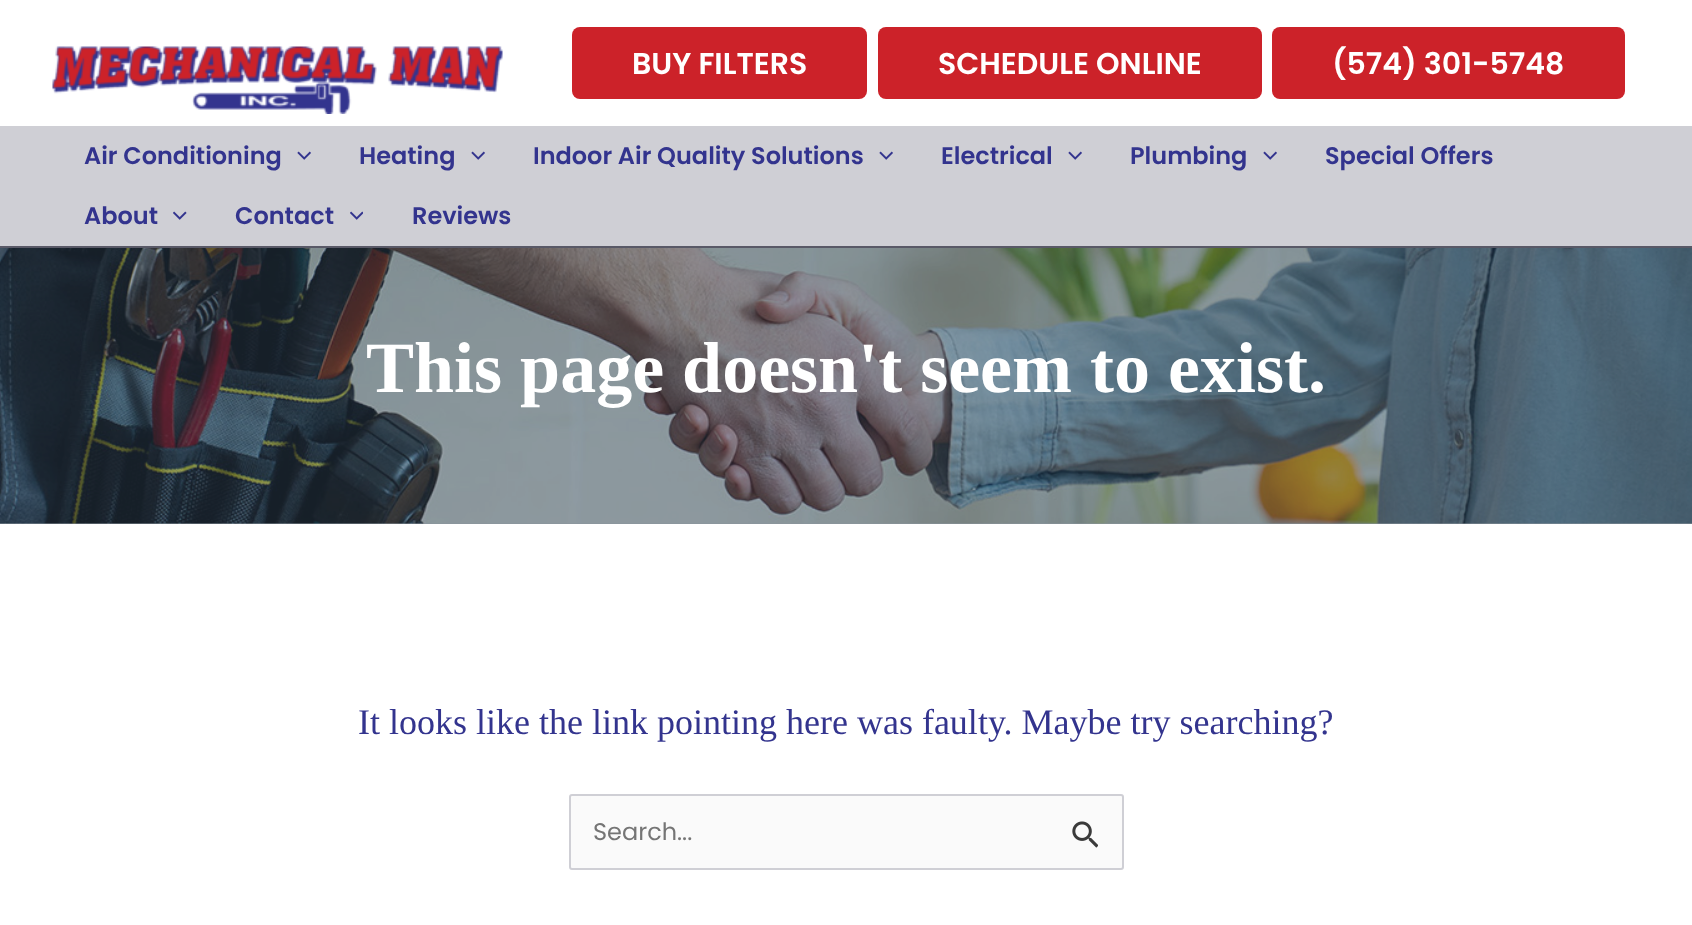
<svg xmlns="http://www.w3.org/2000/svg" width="1692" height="925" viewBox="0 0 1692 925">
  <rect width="100%" height="100%" fill="#ffffff"/>
  <image x="52" y="46" width="451" height="68" href="img1.png"/>
  <rect x="572" y="27" width="295" height="72" rx="8" fill="#cc2229"/>
  <text x="632" y="74" font-family="Poppins" font-size="30" font-weight="600" fill="#ffffff">BUY FILTERS</text>
  <rect x="878" y="27" width="384" height="72" rx="8" fill="#cc2229"/>
  <text x="938" y="74" font-family="Poppins" font-size="30" font-weight="600" fill="#ffffff">SCHEDULE ONLINE</text>
  <rect x="1272" y="27" width="353" height="72" rx="8" fill="#cc2229"/>
  <text x="1332" y="74" font-family="Poppins" font-size="30" font-weight="600" fill="#ffffff">(574) 301-5748</text>
  <rect x="0" y="126" width="1692" height="120" fill="#cfcfd5"/>
  <rect x="0" y="246" width="1692" height="2" fill="#595967"/>
  <text x="84" y="164" font-family="Poppins" font-size="24" font-weight="600" fill="#33348e">Air Conditioning</text>
  <image x="297" y="151" width="14" height="9" href="img2.png"/>
  <text x="359" y="164" font-family="Poppins" font-size="24" font-weight="600" fill="#33348e">Heating</text>
  <image x="471" y="151" width="14" height="9" href="img2.png"/>
  <text x="533" y="164" font-family="Poppins" font-size="24" font-weight="600" fill="#33348e">Indoor Air Quality Solutions</text>
  <image x="879" y="151" width="14" height="9" href="img2.png"/>
  <text x="941" y="164" font-family="Poppins" font-size="24" font-weight="600" fill="#33348e">Electrical</text>
  <image x="1068" y="151" width="14" height="9" href="img2.png"/>
  <text x="1130" y="164" font-family="Poppins" font-size="24" font-weight="600" fill="#33348e">Plumbing</text>
  <image x="1263" y="151" width="14" height="9" href="img2.png"/>
  <text x="1325" y="164" font-family="Poppins" font-size="24" font-weight="600" fill="#33348e">Special Offers</text>
  <text x="84" y="224" font-family="Poppins" font-size="24" font-weight="600" fill="#33348e">About</text>
  <image x="173" y="211" width="14" height="9" href="img3.png"/>
  <text x="235" y="224" font-family="Poppins" font-size="24" font-weight="600" fill="#33348e">Contact</text>
  <image x="350" y="211" width="13" height="9" href="img4.png"/>
  <text x="412" y="224" font-family="Poppins" font-size="24" font-weight="600" fill="#33348e">Reviews</text>
  <rect x="0" y="523" width="1692" height="1" fill="#8b949d"/>
  <image x="0" y="248" width="1692" height="276" href="img5.png"/>
  <text x="366" y="392" font-family="Liberation Serif" font-size="72" font-weight="bold" fill="#ffffff">This page doesn't seem to exist.</text>
  <text x="358" y="734" font-family="Liberation Serif" font-size="36" fill="#33348e">It looks like the link pointing here was faulty. Maybe try searching?</text>
  <rect x="570" y="795" width="553" height="74" rx="2" fill="#fafafa" stroke="#cfcfd5" stroke-width="2"/>
  <text x="593" y="840" font-family="Poppins" font-size="24" fill="#757575">Search...</text>
  <image x="1072" y="821" width="26" height="27" href="img6.png"/>
</svg>
